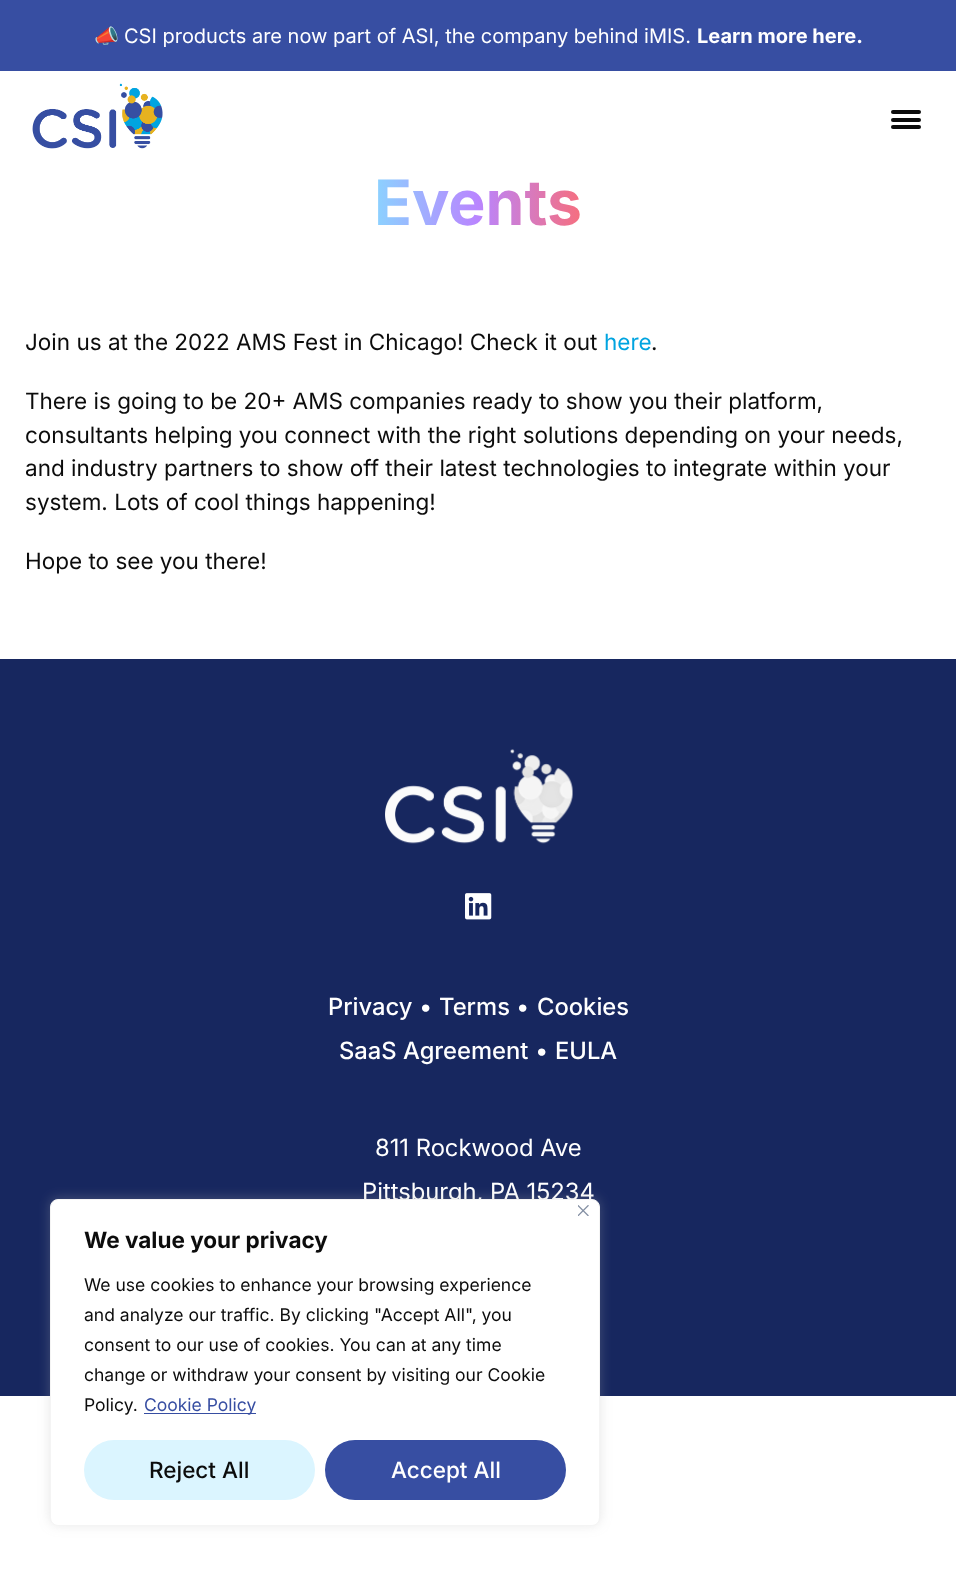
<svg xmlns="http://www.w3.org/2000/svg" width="956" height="1576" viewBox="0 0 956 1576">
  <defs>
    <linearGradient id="g1" gradientUnits="userSpaceOnUse" x1="359" y1="203" x2="597" y2="203"><stop offset="0" stop-color="#84deff"/><stop offset="0.5" stop-color="#b985ff"/><stop offset="1" stop-color="#ff6b6b"/></linearGradient>
    <filter id="blur1" x="-50%" y="-200%" width="200%" height="500%"><feGaussianBlur stdDeviation="6"/></filter>
  </defs>
  <rect width="100%" height="100%" fill="#ffffff"/>
  <rect x="0" y="0" width="956" height="71" fill="#374ea2"/>
  <text x="94" y="43" font-family="Noto Color Emoji" font-size="20" fill="#ffffff">📣</text>
  <text x="124" y="43" font-family="Inter" font-size="20" fill="#ffffff">CSI products are now part of ASI, the company behind iMIS.</text>
  <text x="697" y="43" font-family="Inter" font-size="20" font-weight="bold" fill="#ffffff">Learn more here.</text>
  <image x="32" y="83" width="131" height="66" href="img1.png"/>
  <rect x="891" y="110" width="30" height="4" rx="2" fill="#0c0c0c"/>
  <rect x="891" y="118" width="30" height="4" rx="2" fill="#0c0c0c"/>
  <rect x="891" y="125" width="30" height="4" rx="2" fill="#0c0c0c"/>
  <text x="374" y="225" font-family="Inter" font-size="62.5" font-weight="bold" fill="url(#g1)">Events</text>
  <text x="25" y="350" font-family="Inter" font-size="22.5" fill="#0c0c0c">Join us at the 2022 AMS Fest in Chicago! Check it out</text>
  <text x="604" y="350" font-family="Inter" font-size="22.5" fill="#00a4e0">here</text>
  <text x="651" y="350" font-family="Inter" font-size="22.5" fill="#0c0c0c">.</text>
  <text x="25" y="409" font-family="Inter" font-size="22.5" fill="#0c0c0c">There is going to be 20+ AMS companies ready to show you their platform,</text>
  <text x="25" y="443" font-family="Inter" font-size="22.5" fill="#0c0c0c">consultants helping you connect with the right solutions depending on your needs,</text>
  <text x="25" y="476" font-family="Inter" font-size="22.5" fill="#0c0c0c">and industry partners to show off their latest technologies to integrate within your</text>
  <text x="25" y="510" font-family="Inter" font-size="22.5" fill="#0c0c0c">system. Lots of cool things happening!</text>
  <text x="25" y="569" font-family="Inter" font-size="22.5" fill="#0c0c0c">Hope to see you there!</text>
  <rect x="0" y="659" width="956" height="737" fill="#17275f"/>
  <image x="385" y="749" width="188" height="95" href="img2.png"/>
  <image x="465" y="893" width="27" height="27" href="img3.png"/>
  <text x="328" y="1015" font-family="Inter" font-size="23.75" font-weight="500" fill="#ffffff">Privacy</text>
  <text x="419" y="1015" font-family="Inter" font-size="23.75" fill="#ffffff">•</text>
  <text x="439" y="1015" font-family="Inter" font-size="23.75" font-weight="500" fill="#ffffff">Terms</text>
  <text x="516" y="1015" font-family="Inter" font-size="23.75" fill="#ffffff">•</text>
  <text x="537" y="1015" font-family="Inter" font-size="23.75" font-weight="500" fill="#ffffff">Cookies</text>
  <text x="339" y="1059" font-family="Inter" font-size="23.75" font-weight="500" fill="#ffffff">SaaS Agreement</text>
  <text x="535" y="1059" font-family="Inter" font-size="23.75" fill="#ffffff">•</text>
  <text x="555" y="1059" font-family="Inter" font-size="23.75" font-weight="500" fill="#ffffff">EULA</text>
  <text x="375" y="1156" font-family="Inter" font-size="23.75" fill="#ffffff">811 Rockwood Ave</text>
  <text x="362" y="1200" font-family="Inter" font-size="23.75" fill="#ffffff">Pittsburgh, PA 15234</text>
  <rect x="50" y="1198" width="550" height="327" rx="8" fill="#acabab" fill-opacity="0.3" filter="url(#blur1)"/>
  <rect x="50.5" y="1199.5" width="549" height="326" rx="7.5" fill="#ffffff" stroke="#f4f4f4"/>
  <image x="578" y="1205" width="11" height="11" href="img4.png"/>
  <text x="84" y="1248" font-family="Inter" font-size="22.5" font-weight="bold" fill="#0c0c0c">We value your privacy</text>
  <text x="84" y="1291" font-family="Inter" font-size="17.5" fill="#0c0c0c">We use cookies to enhance your browsing experience</text>
  <text x="84" y="1321" font-family="Inter" font-size="17.5" fill="#0c0c0c">and analyze our traffic. By clicking "Accept All", you</text>
  <text x="84" y="1351" font-family="Inter" font-size="17.5" fill="#0c0c0c">consent to our use of cookies. You can at any time</text>
  <text x="84" y="1381" font-family="Inter" font-size="17.5" fill="#0c0c0c">change or withdraw your consent by visiting our Cookie</text>
  <text x="84" y="1411" font-family="Inter" font-size="17.5" fill="#0c0c0c">Policy.</text>
  <rect x="144" y="1413" width="112" height="1" fill="#374ea2"/>
  <text x="144" y="1411" font-family="Inter" font-size="17.5" fill="#374ea2">Cookie Policy</text>
  <rect x="84" y="1440" width="231" height="60" rx="30" fill="#dbf5ff"/>
  <text x="149" y="1478" font-family="Inter" font-size="22.5" font-weight="500" fill="#0c0c0c">Reject All</text>
  <rect x="325" y="1440" width="241" height="60" rx="30" fill="#374ea2"/>
  <text x="391" y="1478" font-family="Inter" font-size="22.5" font-weight="500" fill="#ffffff">Accept All</text>
</svg>
